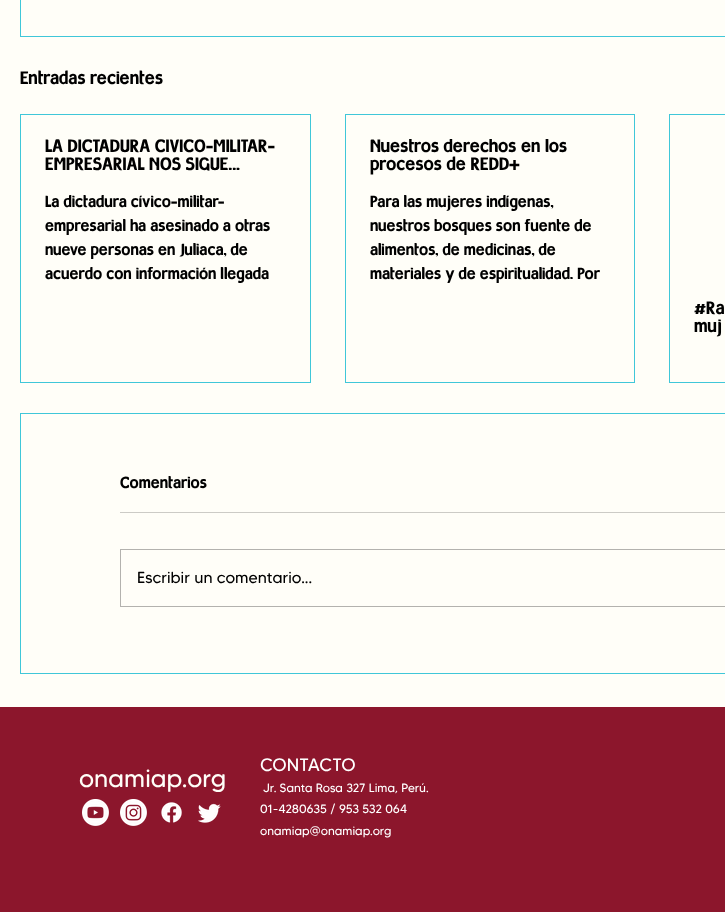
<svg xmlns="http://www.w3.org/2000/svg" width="725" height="912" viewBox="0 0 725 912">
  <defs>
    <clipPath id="clip1"><rect x="45" y="139" width="241" height="36"/></clipPath>
    <clipPath id="clip2"><rect x="370" y="139" width="240" height="36"/></clipPath>
  </defs>
  <rect width="100%" height="100%" fill="#fffef8"/>
  <rect x="20.5" y="-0.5" width="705" height="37" fill="none" stroke="#40c7d9"/>
  <text x="20" y="84" font-family="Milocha" font-size="18" fill="#000000">Entradas recientes</text>
  <rect x="20.5" y="114.5" width="290" height="268" fill="none" stroke="#40c7d9"/>
  <g clip-path="url(#clip1)">
    <text x="45" y="152" font-family="Milocha" font-size="18" fill="#000000">LA DICTADURA CÍVICO-MILITAR-</text>
  </g>
  <text x="45" y="170" font-family="Milocha" font-size="18" fill="#000000">EMPRESARIAL NOS SIGUE...</text>
  <text x="45" y="207" font-family="Milocha" font-size="16" fill="#000000">La dictadura cívico-militar-</text>
  <text x="45" y="231" font-family="Milocha" font-size="16" fill="#000000">empresarial ha asesinado a otras</text>
  <text x="45" y="255" font-family="Milocha" font-size="16" fill="#000000">nueve personas en Juliaca, de</text>
  <text x="45" y="279" font-family="Milocha" font-size="16" fill="#000000">acuerdo con información llegada</text>
  <rect x="345.5" y="114.5" width="289" height="268" fill="none" stroke="#40c7d9"/>
  <g clip-path="url(#clip2)">
    <text x="370" y="152" font-family="Milocha" font-size="18" fill="#000000">Nuestros derechos en los</text>
  </g>
  <text x="370" y="170" font-family="Milocha" font-size="18" fill="#000000">procesos de REDD+</text>
  <text x="370" y="207" font-family="Milocha" font-size="16" fill="#000000">Para las mujeres indígenas,</text>
  <text x="370" y="231" font-family="Milocha" font-size="16" fill="#000000">nuestros bosques son fuente de</text>
  <text x="370" y="255" font-family="Milocha" font-size="16" fill="#000000">alimentos, de medicinas, de</text>
  <text x="370" y="279" font-family="Milocha" font-size="16" fill="#000000">materiales y de espiritualidad. Por</text>
  <rect x="669.5" y="114.5" width="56" height="268" fill="none" stroke="#40c7d9"/>
  <text x="694" y="314" font-family="Milocha" font-size="18" fill="#000000">#Ra</text>
  <text x="694" y="332" font-family="Milocha" font-size="18" fill="#000000">muj</text>
  <rect x="20.5" y="413.5" width="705" height="260" fill="none" stroke="#40c7d9"/>
  <text x="120" y="488" font-family="Milocha" font-size="16" fill="#000000">Comentarios</text>
  <rect x="120" y="512" width="605" height="1" fill="#cccbc6"/>
  <rect x="120.5" y="549.5" width="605" height="57" fill="none" stroke="#b3b2ae"/>
  <text x="137" y="583" font-family="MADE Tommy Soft" font-size="16" fill="#000000">Escribir un comentario...</text>
  <rect x="0" y="707" width="725" height="205" fill="#8c162c"/>
  <text x="79" y="787" font-family="MADE Tommy Soft" font-size="25" fill="#fffef8">onamiap.org</text>
  <text x="260" y="771" font-family="MADE Tommy Soft" font-size="18" fill="#ffffff">CONTACTO</text>
  <text x="263" y="792" font-family="MADE Tommy Soft" font-size="12" fill="#ffffff">Jr. Santa Rosa 327 Lima, Perú.</text>
  <text x="260" y="813" font-family="MADE Tommy Soft" font-size="12" fill="#ffffff">01-4280635 / 953 532 064</text>
  <text x="260" y="835" font-family="MADE Tommy Soft" font-size="12" fill="#ffffff">onamiap@onamiap.org</text>
  <image x="82" y="799" width="27" height="27" href="img1.png"/>
  <image x="120" y="799" width="27" height="27" href="img2.png"/>
  <image x="161" y="802" width="21" height="21" href="img3.png"/>
  <image x="198" y="803" width="23" height="20" href="img4.png"/>
</svg>
